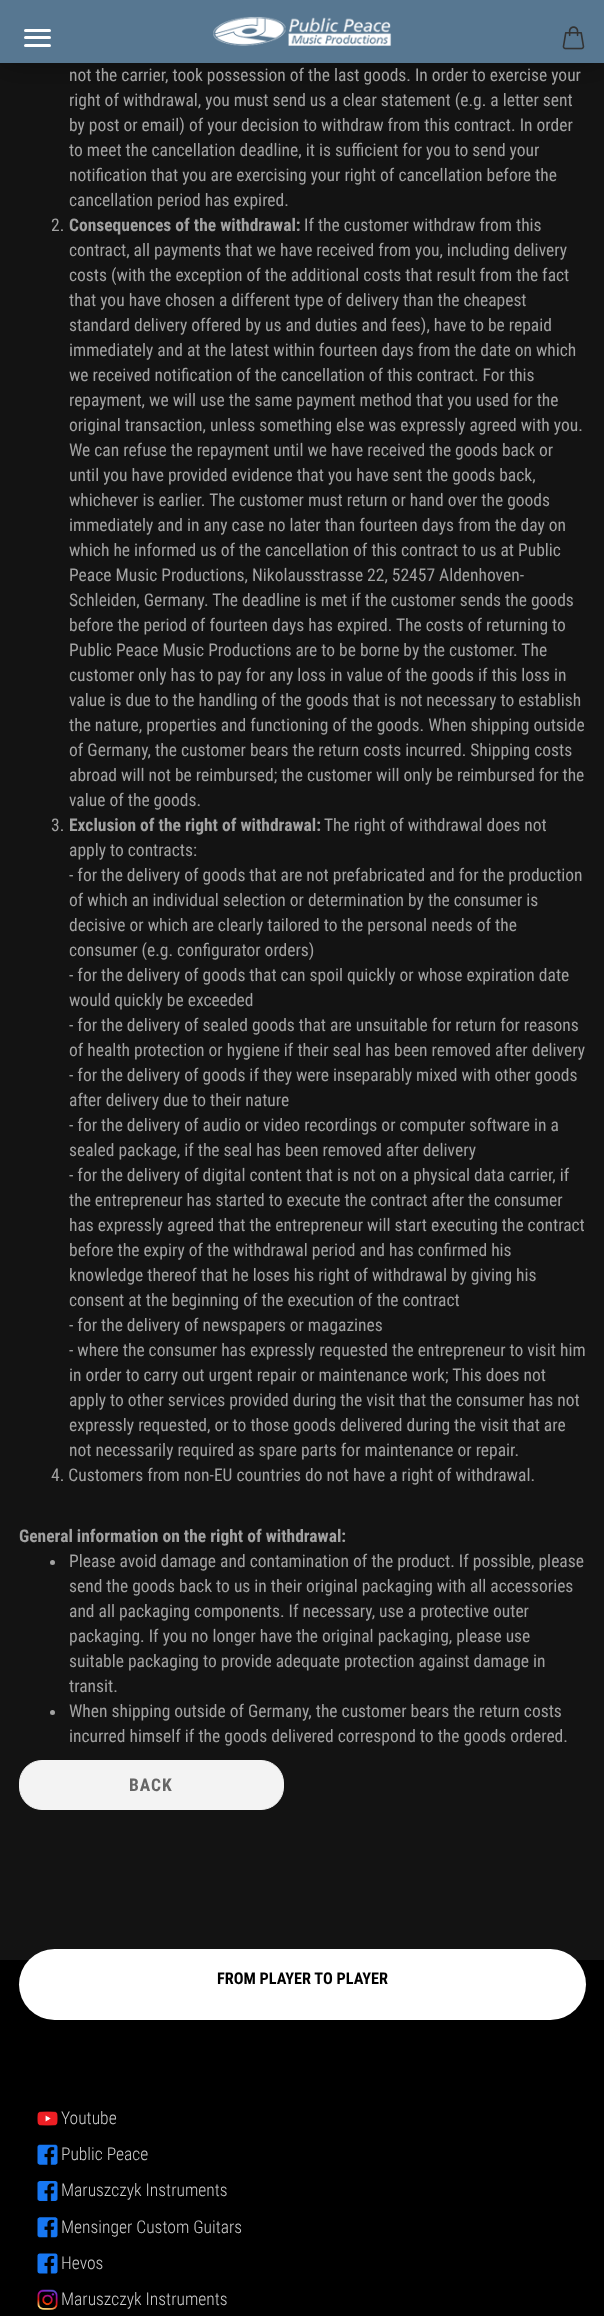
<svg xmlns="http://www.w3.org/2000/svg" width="604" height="2316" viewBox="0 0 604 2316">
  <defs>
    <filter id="blur1" x="-50%" y="-200%" width="200%" height="500%"><feGaussianBlur stdDeviation="15.5"/></filter>
  </defs>
  <rect width="100%" height="100%" fill="#131313"/>
  <rect x="0" y="0" width="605" height="63" fill="#000000" fill-opacity="0.35" filter="url(#blur1)"/>
  <rect x="0" y="0" width="604" height="63" fill="#577791"/>
  <image x="213" y="16" width="179" height="30" href="img1.png"/>
  <image x="562" y="26" width="23" height="24" href="img2.png"/>
  <rect x="24" y="36" width="27" height="3" rx="1.5" fill="#ffffff"/>
  <rect x="24" y="29" width="27" height="3" rx="1.5" fill="#ffffff"/>
  <rect x="24" y="44" width="27" height="3" rx="1.5" fill="#ffffff"/>
  <text x="69" y="81" font-family="Roboto Condensed" font-size="17.5" fill="#a2a2a2">not the carrier, took possession of the last goods. In order to exercise your</text>
  <text x="69" y="106" font-family="Roboto Condensed" font-size="17.5" fill="#a2a2a2">right of withdrawal, you must send us a clear statement (e.g. a letter sent</text>
  <text x="69" y="131" font-family="Roboto Condensed" font-size="17.5" fill="#a2a2a2">by post or email) of your decision to withdraw from this contract. In order</text>
  <text x="69" y="156" font-family="Roboto Condensed" font-size="17.5" fill="#a2a2a2">to meet the cancellation deadline, it is sufficient for you to send your</text>
  <text x="69" y="181" font-family="Roboto Condensed" font-size="17.5" fill="#a2a2a2">notification that you are exercising your right of cancellation before the</text>
  <text x="69" y="206" font-family="Roboto Condensed" font-size="17.5" fill="#a2a2a2">cancellation period has expired.</text>
  <text x="51" y="231" font-family="Roboto Condensed" font-size="17.5" fill="#a2a2a2">2.</text>
  <text x="69" y="231" font-family="Roboto Condensed" font-size="17.5" font-weight="bold" fill="#a2a2a2">Consequences of the withdrawal:</text>
  <text x="304" y="231" font-family="Roboto Condensed" font-size="17.5" fill="#a2a2a2">If the customer withdraw from this</text>
  <text x="69" y="256" font-family="Roboto Condensed" font-size="17.5" fill="#a2a2a2">contract, all payments that we have received from you, including delivery</text>
  <text x="69" y="281" font-family="Roboto Condensed" font-size="17.5" fill="#a2a2a2">costs (with the exception of the additional costs that result from the fact</text>
  <text x="69" y="306" font-family="Roboto Condensed" font-size="17.5" fill="#a2a2a2">that you have chosen a different type of delivery than the cheapest</text>
  <text x="69" y="331" font-family="Roboto Condensed" font-size="17.5" fill="#a2a2a2">standard delivery offered by us and duties and fees), have to be repaid</text>
  <text x="69" y="356" font-family="Roboto Condensed" font-size="17.5" fill="#a2a2a2">immediately and at the latest within fourteen days from the date on which</text>
  <text x="69" y="381" font-family="Roboto Condensed" font-size="17.5" fill="#a2a2a2">we received notification of the cancellation of this contract. For this</text>
  <text x="69" y="406" font-family="Roboto Condensed" font-size="17.5" fill="#a2a2a2">repayment, we will use the same payment method that you used for the</text>
  <text x="69" y="431" font-family="Roboto Condensed" font-size="17.5" fill="#a2a2a2">original transaction, unless something else was expressly agreed with you.</text>
  <text x="69" y="456" font-family="Roboto Condensed" font-size="17.5" fill="#a2a2a2">We can refuse the repayment until we have received the goods back or</text>
  <text x="69" y="481" font-family="Roboto Condensed" font-size="17.5" fill="#a2a2a2">until you have provided evidence that you have sent the goods back,</text>
  <text x="69" y="506" font-family="Roboto Condensed" font-size="17.5" fill="#a2a2a2">whichever is earlier. The customer must return or hand over the goods</text>
  <text x="69" y="531" font-family="Roboto Condensed" font-size="17.5" fill="#a2a2a2">immediately and in any case no later than fourteen days from the day on</text>
  <text x="69" y="556" font-family="Roboto Condensed" font-size="17.5" fill="#a2a2a2">which he informed us of the cancellation of this contract to us at Public</text>
  <text x="69" y="581" font-family="Roboto Condensed" font-size="17.5" fill="#a2a2a2">Peace Music Productions, Nikolausstrasse 22, 52457 Aldenhoven-</text>
  <text x="69" y="606" font-family="Roboto Condensed" font-size="17.5" fill="#a2a2a2">Schleiden, Germany. The deadline is met if the customer sends the goods</text>
  <text x="69" y="631" font-family="Roboto Condensed" font-size="17.5" fill="#a2a2a2">before the period of fourteen days has expired. The costs of returning to</text>
  <text x="69" y="656" font-family="Roboto Condensed" font-size="17.5" fill="#a2a2a2">Public Peace Music Productions are to be borne by the customer. The</text>
  <text x="69" y="681" font-family="Roboto Condensed" font-size="17.5" fill="#a2a2a2">customer only has to pay for any loss in value of the goods if this loss in</text>
  <text x="69" y="706" font-family="Roboto Condensed" font-size="17.5" fill="#a2a2a2">value is due to the handling of the goods that is not necessary to establish</text>
  <text x="69" y="731" font-family="Roboto Condensed" font-size="17.5" fill="#a2a2a2">the nature, properties and functioning of the goods. When shipping outside</text>
  <text x="69" y="756" font-family="Roboto Condensed" font-size="17.5" fill="#a2a2a2">of Germany, the customer bears the return costs incurred. Shipping costs</text>
  <text x="69" y="781" font-family="Roboto Condensed" font-size="17.5" fill="#a2a2a2">abroad will not be reimbursed; the customer will only be reimbursed for the</text>
  <text x="69" y="806" font-family="Roboto Condensed" font-size="17.5" fill="#a2a2a2">value of the goods.</text>
  <text x="51" y="831" font-family="Roboto Condensed" font-size="17.5" fill="#a2a2a2">3.</text>
  <text x="69" y="831" font-family="Roboto Condensed" font-size="17.5" font-weight="bold" fill="#a2a2a2">Exclusion of the right of withdrawal:</text>
  <text x="324" y="831" font-family="Roboto Condensed" font-size="17.5" fill="#a2a2a2">The right of withdrawal does not</text>
  <text x="69" y="856" font-family="Roboto Condensed" font-size="17.5" fill="#a2a2a2">apply to contracts:</text>
  <text x="69" y="881" font-family="Roboto Condensed" font-size="17.5" fill="#a2a2a2">- for the delivery of goods that are not prefabricated and for the production</text>
  <text x="69" y="906" font-family="Roboto Condensed" font-size="17.5" fill="#a2a2a2">of which an individual selection or determination by the consumer is</text>
  <text x="69" y="931" font-family="Roboto Condensed" font-size="17.5" fill="#a2a2a2">decisive or which are clearly tailored to the personal needs of the</text>
  <text x="69" y="956" font-family="Roboto Condensed" font-size="17.5" fill="#a2a2a2">consumer (e.g. configurator orders)</text>
  <text x="69" y="981" font-family="Roboto Condensed" font-size="17.5" fill="#a2a2a2">- for the delivery of goods that can spoil quickly or whose expiration date</text>
  <text x="69" y="1006" font-family="Roboto Condensed" font-size="17.5" fill="#a2a2a2">would quickly be exceeded</text>
  <text x="69" y="1031" font-family="Roboto Condensed" font-size="17.5" fill="#a2a2a2">- for the delivery of sealed goods that are unsuitable for return for reasons</text>
  <text x="69" y="1056" font-family="Roboto Condensed" font-size="17.5" fill="#a2a2a2">of health protection or hygiene if their seal has been removed after delivery</text>
  <text x="69" y="1081" font-family="Roboto Condensed" font-size="17.5" fill="#a2a2a2">- for the delivery of goods if they were inseparably mixed with other goods</text>
  <text x="69" y="1106" font-family="Roboto Condensed" font-size="17.5" fill="#a2a2a2">after delivery due to their nature</text>
  <text x="69" y="1131" font-family="Roboto Condensed" font-size="17.5" fill="#a2a2a2">- for the delivery of audio or video recordings or computer software in a</text>
  <text x="69" y="1156" font-family="Roboto Condensed" font-size="17.5" fill="#a2a2a2">sealed package, if the seal has been removed after delivery</text>
  <text x="69" y="1181" font-family="Roboto Condensed" font-size="17.5" fill="#a2a2a2">- for the delivery of digital content that is not on a physical data carrier, if</text>
  <text x="69" y="1206" font-family="Roboto Condensed" font-size="17.5" fill="#a2a2a2">the entrepreneur has started to execute the contract after the consumer</text>
  <text x="69" y="1231" font-family="Roboto Condensed" font-size="17.5" fill="#a2a2a2">has expressly agreed that the entrepreneur will start executing the contract</text>
  <text x="69" y="1256" font-family="Roboto Condensed" font-size="17.5" fill="#a2a2a2">before the expiry of the withdrawal period and has confirmed his</text>
  <text x="69" y="1281" font-family="Roboto Condensed" font-size="17.5" fill="#a2a2a2">knowledge thereof that he loses his right of withdrawal by giving his</text>
  <text x="69" y="1306" font-family="Roboto Condensed" font-size="17.5" fill="#a2a2a2">consent at the beginning of the execution of the contract</text>
  <text x="69" y="1331" font-family="Roboto Condensed" font-size="17.5" fill="#a2a2a2">- for the delivery of newspapers or magazines</text>
  <text x="69" y="1356" font-family="Roboto Condensed" font-size="17.5" fill="#a2a2a2">- where the consumer has expressly requested the entrepreneur to visit him</text>
  <text x="69" y="1381" font-family="Roboto Condensed" font-size="17.5" fill="#a2a2a2">in order to carry out urgent repair or maintenance work; This does not</text>
  <text x="69" y="1406" font-family="Roboto Condensed" font-size="17.5" fill="#a2a2a2">apply to other services provided during the visit that the consumer has not</text>
  <text x="69" y="1431" font-family="Roboto Condensed" font-size="17.5" fill="#a2a2a2">expressly requested, or to those goods delivered during the visit that are</text>
  <text x="69" y="1456" font-family="Roboto Condensed" font-size="17.5" fill="#a2a2a2">not necessarily required as spare parts for maintenance or repair.</text>
  <text x="51" y="1481" font-family="Roboto Condensed" font-size="17.5" fill="#a2a2a2">4. Customers from non-EU countries do not have a right of withdrawal.</text>
  <text x="19" y="1542" font-family="Roboto Condensed" font-size="17.5" font-weight="bold" fill="#a2a2a2">General information on the right of withdrawal:</text>
  <circle cx="52.5" cy="1562.5" r="2.5" fill="#a2a2a2"/>
  <text x="69" y="1567" font-family="Roboto Condensed" font-size="17.5" fill="#a2a2a2">Please avoid damage and contamination of the product. If possible, please</text>
  <text x="69" y="1592" font-family="Roboto Condensed" font-size="17.5" fill="#a2a2a2">send the goods back to us in their original packaging with all accessories</text>
  <text x="69" y="1617" font-family="Roboto Condensed" font-size="17.5" fill="#a2a2a2">and all packaging components. If necessary, use a protective outer</text>
  <text x="69" y="1642" font-family="Roboto Condensed" font-size="17.5" fill="#a2a2a2">packaging. If you no longer have the original packaging, please use</text>
  <text x="69" y="1667" font-family="Roboto Condensed" font-size="17.5" fill="#a2a2a2">suitable packaging to provide adequate protection against damage in</text>
  <text x="69" y="1692" font-family="Roboto Condensed" font-size="17.5" fill="#a2a2a2">transit.</text>
  <circle cx="52.5" cy="1712.5" r="2.5" fill="#a2a2a2"/>
  <text x="69" y="1717" font-family="Roboto Condensed" font-size="17.5" fill="#a2a2a2">When shipping outside of Germany, the customer bears the return costs</text>
  <text x="69" y="1742" font-family="Roboto Condensed" font-size="17.5" fill="#a2a2a2">incurred himself if the goods delivered correspond to the goods ordered.</text>
  <rect x="19.5" y="1760.5" width="264" height="49" rx="22.5" fill="#f3f3f3" stroke="#f3f3f3"/>
  <text x="129" y="1791" font-family="Roboto Condensed" font-size="17.5" font-weight="bold" letter-spacing="1" fill="#666666">BACK</text>
  <rect x="0" y="1960" width="604" height="356" fill="#000000"/>
  <rect x="19" y="1949" width="567" height="71" rx="35.5" fill="#ffffff"/>
  <text x="217" y="1984" font-family="Roboto Condensed" font-size="16.25" font-weight="bold" fill="#000000">FROM PLAYER TO PLAYER</text>
  <image x="37" y="2111" width="21" height="15" href="img3.png"/>
  <text x="61" y="2124" font-family="Roboto Condensed" font-size="17.5" font-weight="300" fill="#cccccc">Youtube</text>
  <image x="37" y="2144" width="21" height="21" href="img4.png"/>
  <text x="61" y="2160" font-family="Roboto Condensed" font-size="17.5" font-weight="300" fill="#cccccc">Public Peace</text>
  <image x="37" y="2181" width="21" height="20" href="img5.png"/>
  <text x="61" y="2196" font-family="Roboto Condensed" font-size="17.5" font-weight="300" fill="#cccccc">Maruszczyk Instruments</text>
  <image x="37" y="2217" width="21" height="21" href="img6.png"/>
  <text x="61" y="2233" font-family="Roboto Condensed" font-size="17.5" font-weight="300" fill="#cccccc">Mensinger Custom Guitars</text>
  <image x="37" y="2253" width="21" height="21" href="img7.png"/>
  <text x="61" y="2269" font-family="Roboto Condensed" font-size="17.5" font-weight="300" fill="#cccccc">Hevos</text>
  <image x="37" y="2289" width="21" height="21" href="img8.png"/>
  <text x="61" y="2305" font-family="Roboto Condensed" font-size="17.5" font-weight="300" fill="#cccccc">Maruszczyk Instruments</text>
</svg>
